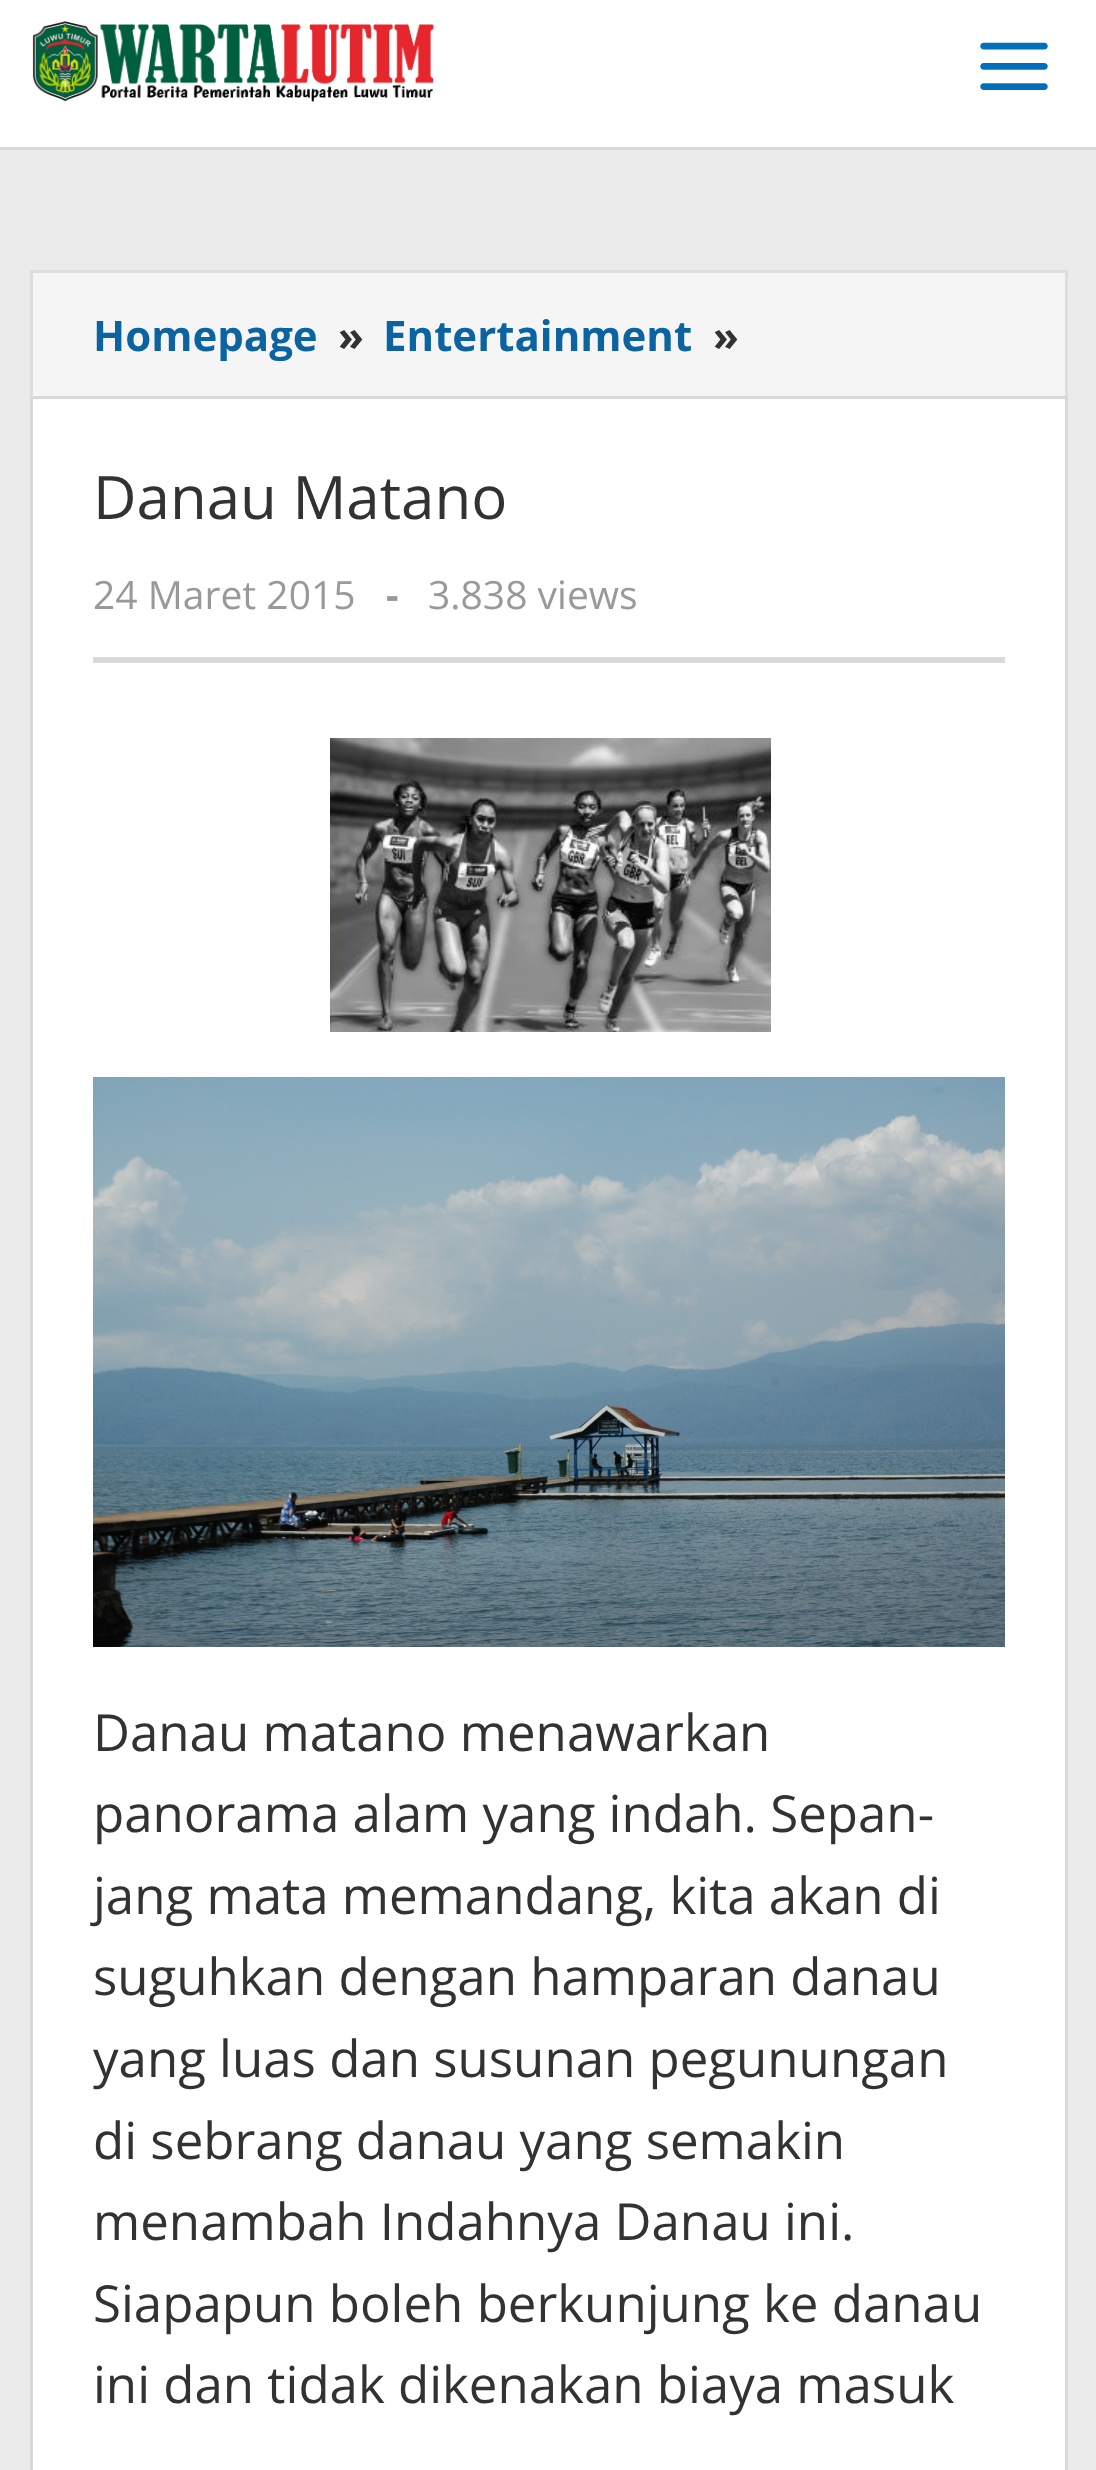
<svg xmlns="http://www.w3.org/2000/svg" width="1096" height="2470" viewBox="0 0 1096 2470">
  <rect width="100%" height="100%" fill="#ebebeb"/>
  <rect x="0" y="0" width="1096" height="147" fill="#ffffff"/>
  <rect x="0" y="147" width="1096" height="3" fill="#d9d9d9"/>
  <image x="32" y="21" width="402" height="81" href="img1.png"/>
  <image x="980" y="42" width="68" height="48" href="img2.png"/>
  <rect x="31.5" y="271.5" width="1035" height="126" fill="#f5f5f5" stroke="#dddddd" stroke-width="3"/>
  <text x="93" y="351" font-family="Open Sans" font-size="42" font-weight="bold" fill="#0b63a1">Homepage</text>
  <text x="338" y="351" font-family="Open Sans" font-size="42" font-weight="bold" fill="#323233">»</text>
  <text x="383" y="351" font-family="Open Sans" font-size="42" font-weight="bold" fill="#0b63a1">Entertainment</text>
  <text x="713" y="351" font-family="Open Sans" font-size="42" font-weight="bold" fill="#323233">»</text>
  <rect x="31.5" y="397.5" width="1035" height="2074" fill="#ffffff" stroke="#d9d9d9" stroke-width="3"/>
  <rect x="93" y="657" width="912" height="6" fill="#d9d9d9"/>
  <text x="93" y="519" font-family="Open Sans" font-size="60" fill="#323233">Danau Matano</text>
  <text x="93" y="609" font-family="Open Sans" font-size="39" fill="#999999">24 Maret 2015</text>
  <text x="386" y="609" font-family="Open Sans" font-size="39" font-weight="bold" fill="#999999">-</text>
  <text x="428" y="609" font-family="Open Sans" font-size="39" fill="#999999">3.838 views</text>
  <image x="330" y="738" width="441" height="294" href="img3.png"/>
  <image x="93" y="1077" width="912" height="570" href="img4.png"/>
  <text x="93" y="1751" font-family="Open Sans" font-size="51" fill="#323233">Danau matano menawarkan</text>
  <text x="93" y="1832" font-family="Open Sans" font-size="51" fill="#323233">panorama alam yang indah. Sepan-</text>
  <text x="93" y="1914" font-family="Open Sans" font-size="51" fill="#323233">jang mata memandang, kita akan di</text>
  <text x="93" y="1995" font-family="Open Sans" font-size="51" fill="#323233">suguhkan dengan hamparan danau</text>
  <text x="93" y="2077" font-family="Open Sans" font-size="51" fill="#323233">yang luas dan susunan pegunungan</text>
  <text x="93" y="2159" font-family="Open Sans" font-size="51" fill="#323233">di sebrang danau yang semakin</text>
  <text x="93" y="2240" font-family="Open Sans" font-size="51" fill="#323233">menambah Indahnya Danau ini.</text>
  <text x="93" y="2322" font-family="Open Sans" font-size="51" fill="#323233">Siapapun boleh berkunjung ke danau</text>
  <text x="93" y="2403" font-family="Open Sans" font-size="51" fill="#323233">ini dan tidak dikenakan biaya masuk</text>
</svg>
